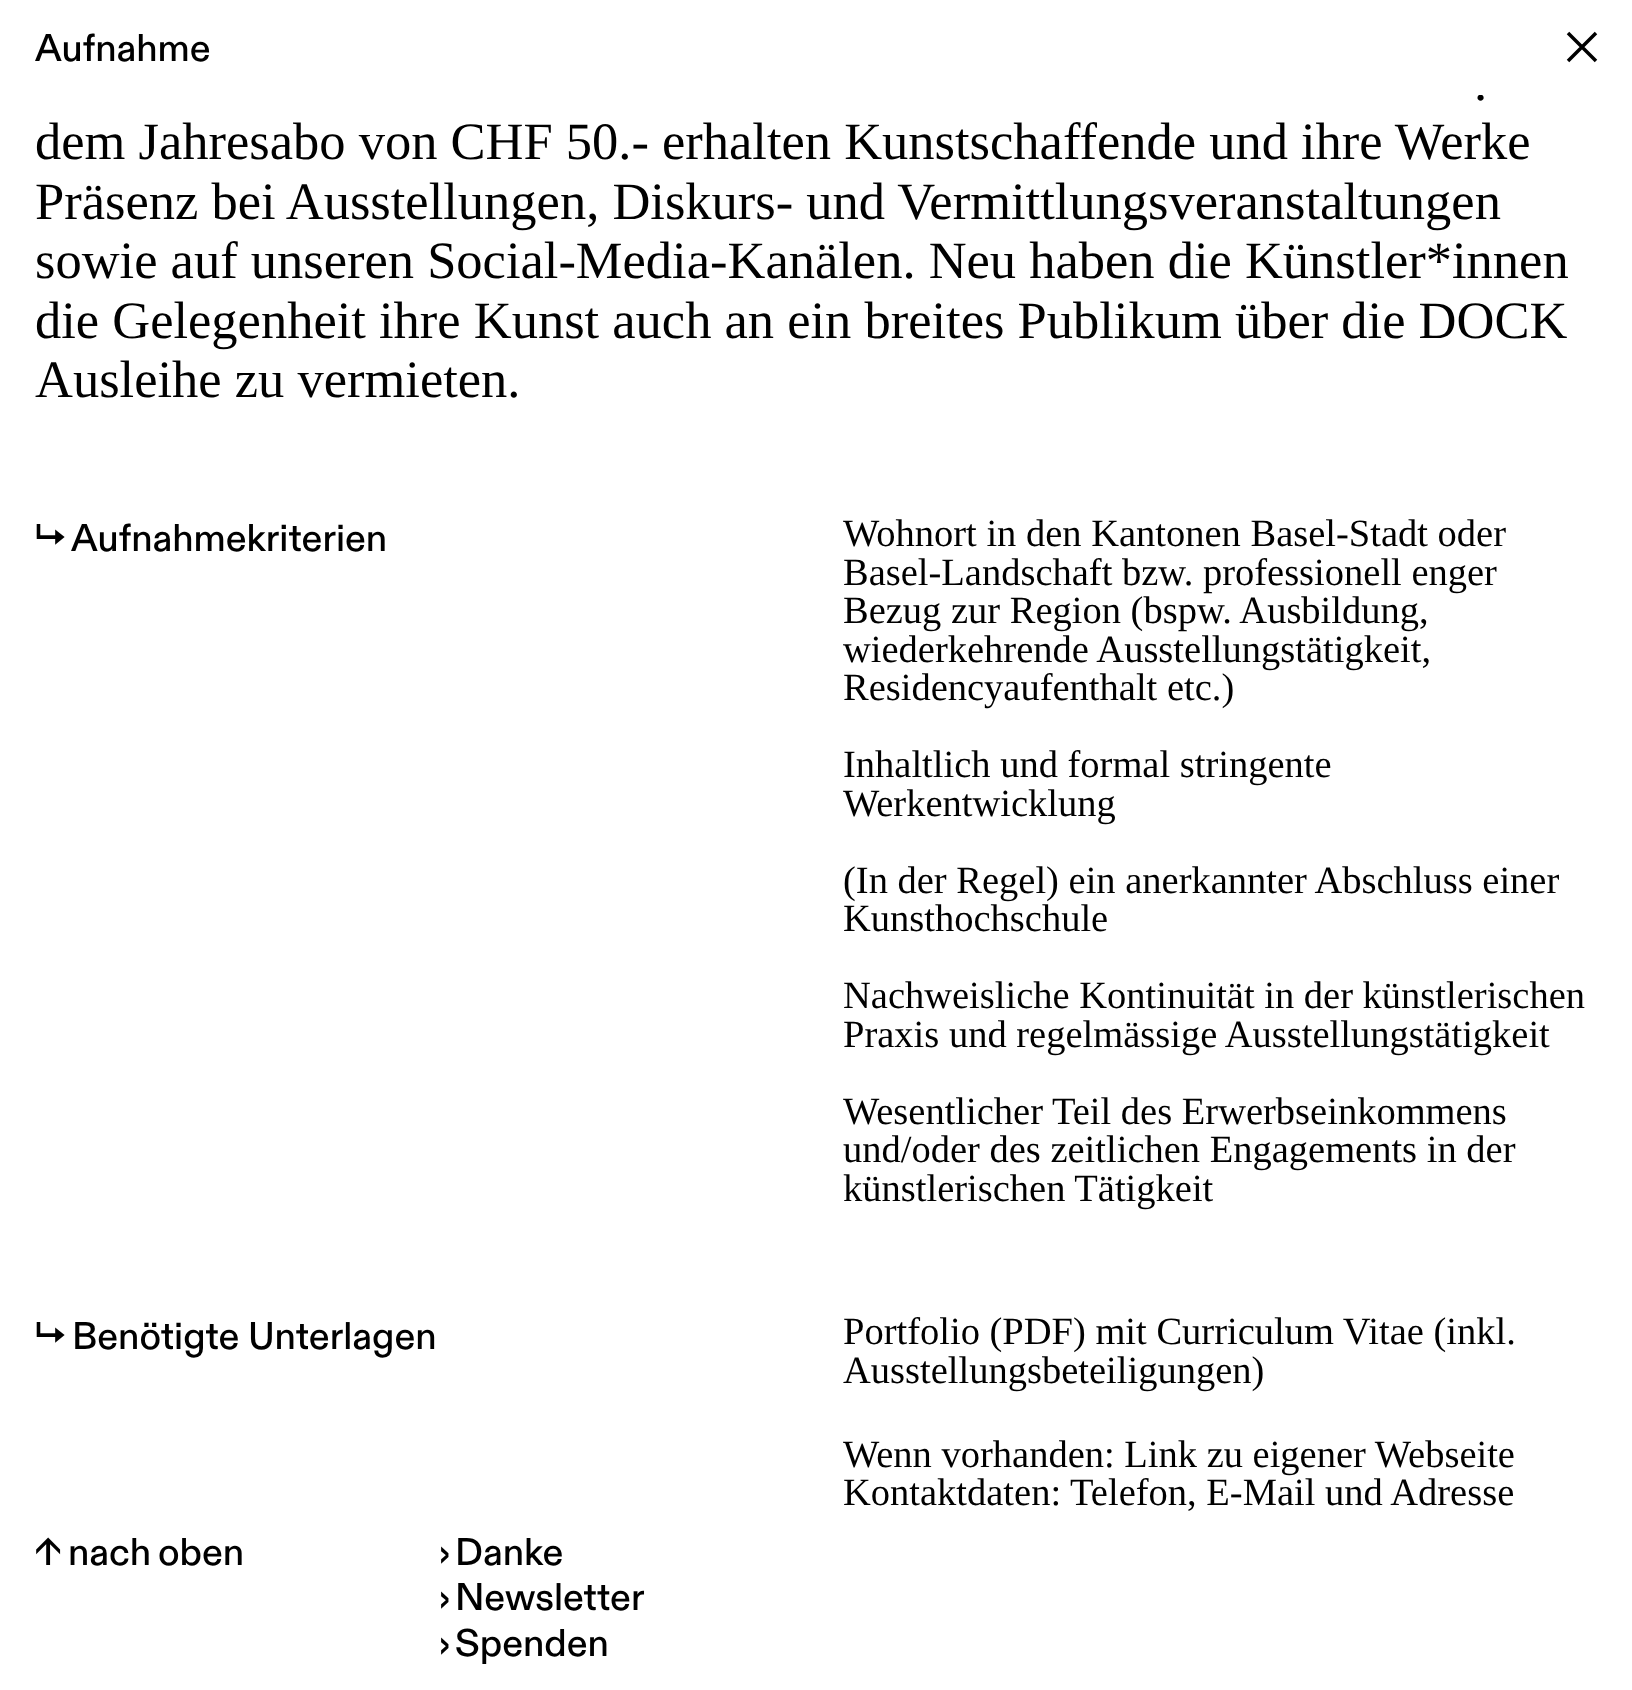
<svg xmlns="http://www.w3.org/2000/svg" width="1632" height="1690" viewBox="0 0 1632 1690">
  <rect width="100%" height="100%" fill="#ffffff"/>
  <text x="1474" y="100" font-family="Liberation Serif" font-size="52.5" fill="#000000">.</text>
  <rect x="1479" y="94" width="3" height="1" fill="#ffffff"/>
  <text x="35" y="61" font-family="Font" font-size="38.5" font-weight="500" fill="#000000">Aufnahme</text>
  <path d="M1568 33L1596 61M1568 61L1596 33" fill="none" stroke="#000000" stroke-width="3.5"/>
  <text x="35" y="159" font-family="Liberation Serif" font-size="52.5" fill="#000000">dem Jahresabo von CHF 50.- erhalten Kunstschaffende und ihre Werke</text>
  <text x="35" y="219" font-family="Liberation Serif" font-size="52.5" fill="#000000">Präsenz bei Ausstellungen, Diskurs- und Vermittlungsveranstaltungen</text>
  <text x="35" y="278" font-family="Liberation Serif" font-size="52.5" fill="#000000">sowie auf unseren Social-Media-Kanälen. Neu haben die Künstler*innen</text>
  <text x="35" y="338" font-family="Liberation Serif" font-size="52.5" fill="#000000">die Gelegenheit ihre Kunst auch an ein breites Publikum über die DOCK</text>
  <text x="35" y="397" font-family="Liberation Serif" font-size="52.5" fill="#000000">Ausleihe zu vermieten.</text>
  <text x="35" y="551" font-family="Font" font-size="38.5" font-weight="500" fill="#000000">↳</text>
  <text x="71" y="551" font-family="Font" font-size="38.5" font-weight="500" fill="#000000">Aufnahmekriterien</text>
  <text x="843" y="546" font-family="Liberation Serif" font-size="38.5" fill="#000000">Wohnort in den Kantonen Basel-Stadt oder</text>
  <text x="843" y="585" font-family="Liberation Serif" font-size="38.5" fill="#000000">Basel-Landschaft bzw. professionell enger</text>
  <text x="843" y="623" font-family="Liberation Serif" font-size="38.5" fill="#000000">Bezug zur Region (bspw. Ausbildung,</text>
  <text x="843" y="662" font-family="Liberation Serif" font-size="38.5" fill="#000000">wiederkehrende Ausstellungstätigkeit,</text>
  <text x="843" y="700" font-family="Liberation Serif" font-size="38.5" fill="#000000">Residencyaufenthalt etc.)</text>
  <text x="843" y="777" font-family="Liberation Serif" font-size="38.5" fill="#000000">Inhaltlich und formal stringente</text>
  <text x="843" y="816" font-family="Liberation Serif" font-size="38.5" fill="#000000">Werkentwicklung</text>
  <text x="843" y="893" font-family="Liberation Serif" font-size="38.5" fill="#000000">(In der Regel) ein anerkannter Abschluss einer</text>
  <text x="843" y="931" font-family="Liberation Serif" font-size="38.5" fill="#000000">Kunsthochschule</text>
  <text x="843" y="1008" font-family="Liberation Serif" font-size="38.5" fill="#000000">Nachweisliche Kontinuität in der künstlerischen</text>
  <text x="843" y="1047" font-family="Liberation Serif" font-size="38.5" fill="#000000">Praxis und regelmässige Ausstellungstätigkeit</text>
  <text x="843" y="1124" font-family="Liberation Serif" font-size="38.5" fill="#000000">Wesentlicher Teil des Erwerbseinkommens</text>
  <text x="843" y="1162" font-family="Liberation Serif" font-size="38.5" fill="#000000">und/oder des zeitlichen Engagements in der</text>
  <text x="843" y="1201" font-family="Liberation Serif" font-size="38.5" fill="#000000">künstlerischen Tätigkeit</text>
  <text x="35" y="1349" font-family="Font" font-size="38.5" font-weight="500" fill="#000000">↳</text>
  <text x="72" y="1349" font-family="Font" font-size="38.5" font-weight="500" fill="#000000">Benötigte Unterlagen</text>
  <text x="843" y="1344" font-family="Liberation Serif" font-size="38.5" fill="#000000">Portfolio (PDF) mit Curriculum Vitae (inkl.</text>
  <text x="843" y="1383" font-family="Liberation Serif" font-size="38.5" fill="#000000">Ausstellungsbeteiligungen)</text>
  <text x="843" y="1467" font-family="Liberation Serif" font-size="38.5" fill="#000000">Wenn vorhanden: Link zu eigener Webseite</text>
  <text x="843" y="1505" font-family="Liberation Serif" font-size="38.5" fill="#000000">Kontaktdaten: Telefon, E-Mail und Adresse</text>
  <text x="35" y="1565" font-family="Font" font-size="38.5" font-weight="500" fill="#000000">↑</text>
  <text x="68" y="1565" font-family="Font" font-size="38.5" font-weight="500" fill="#000000">nach</text>
  <text x="158" y="1565" font-family="Font" font-size="38.5" font-weight="500" fill="#000000">oben</text>
  <text x="439" y="1565" font-family="Font" font-size="38.5" font-weight="500" fill="#000000">›</text>
  <text x="455" y="1565" font-family="Font" font-size="38.5" font-weight="500" fill="#000000">Danke</text>
  <text x="439" y="1610" font-family="Font" font-size="38.5" font-weight="500" fill="#000000">›</text>
  <text x="455" y="1610" font-family="Font" font-size="38.5" font-weight="500" fill="#000000">Newsletter</text>
  <text x="439" y="1656" font-family="Font" font-size="38.5" font-weight="500" fill="#000000">›</text>
  <text x="455" y="1656" font-family="Font" font-size="38.5" font-weight="500" fill="#000000">Spenden</text>
</svg>
